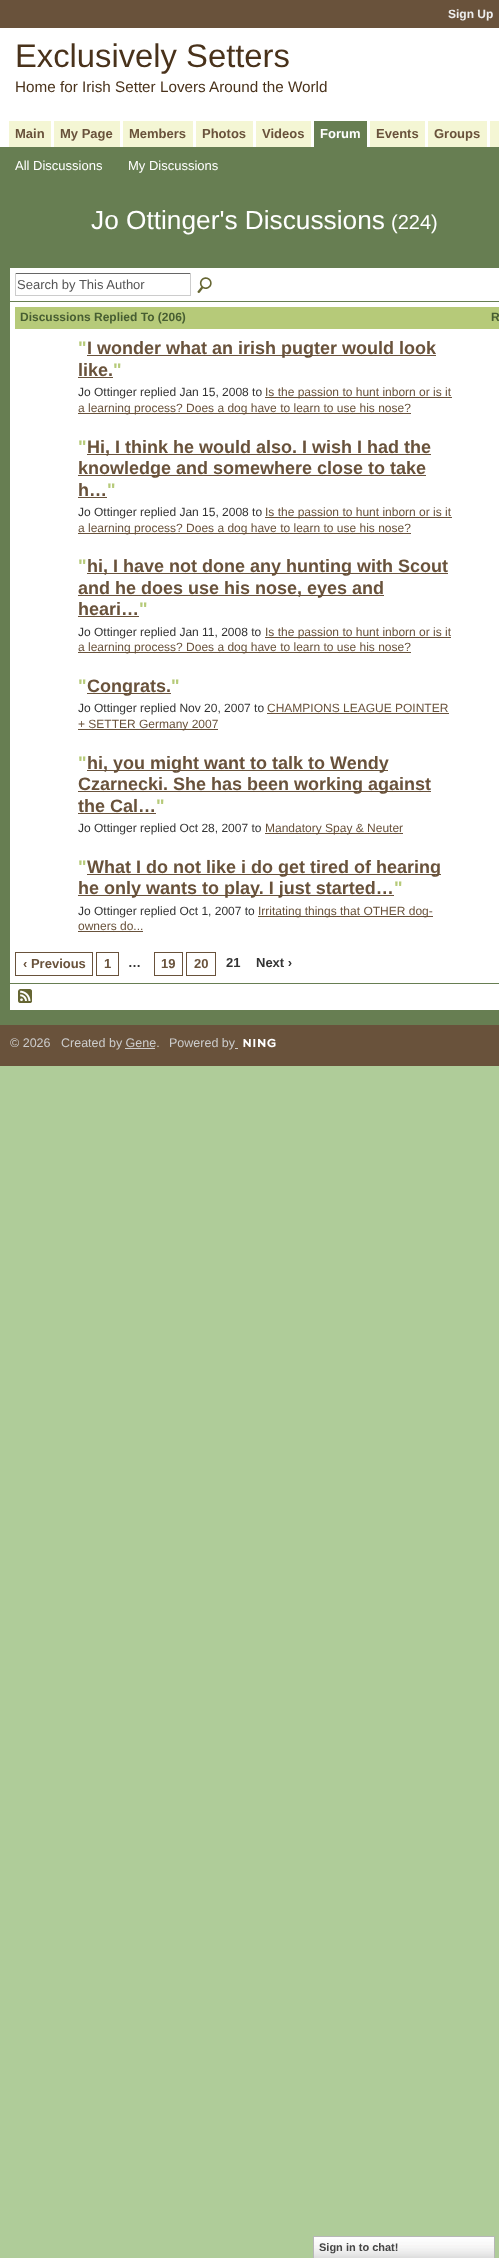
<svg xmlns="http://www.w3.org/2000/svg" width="499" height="2258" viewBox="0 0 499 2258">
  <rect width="100%" height="100%" fill="#afcc99"/>
  <rect x="0" y="0" width="499" height="28" fill="#69523b"/>
  <text x="448" y="18" font-family="Liberation Sans" font-size="12" font-weight="bold" fill="#eeeeee">Sign Up</text>
  <rect x="0" y="28" width="499" height="119" fill="#ffffff"/>
  <text x="15" y="67" font-family="Liberation Sans" font-size="32.75" fill="#49321b">Exclusively Setters</text>
  <text x="15" y="92" font-family="Liberation Sans" font-size="15.25" fill="#49321b">Home for Irish Setter Lovers Around the World</text>
  <rect x="9" y="121" width="42" height="26" fill="#f4f6d4"/>
  <text x="15" y="138" font-family="Liberation Sans" font-size="13" font-weight="bold" fill="#69523b">Main</text>
  <rect x="54" y="121" width="66" height="26" fill="#f4f6d4"/>
  <text x="60" y="138" font-family="Liberation Sans" font-size="13" font-weight="bold" fill="#69523b">My Page</text>
  <rect x="123" y="121" width="70" height="26" fill="#f4f6d4"/>
  <text x="129" y="138" font-family="Liberation Sans" font-size="13" font-weight="bold" fill="#69523b">Members</text>
  <rect x="196" y="121" width="57" height="26" fill="#f4f6d4"/>
  <text x="202" y="138" font-family="Liberation Sans" font-size="13" font-weight="bold" fill="#69523b">Photos</text>
  <rect x="256" y="121" width="55" height="26" fill="#f4f6d4"/>
  <text x="262" y="138" font-family="Liberation Sans" font-size="13" font-weight="bold" fill="#69523b">Videos</text>
  <rect x="314" y="121" width="53" height="26" fill="#677e52"/>
  <text x="320" y="138" font-family="Liberation Sans" font-size="13" font-weight="bold" fill="#ffffff">Forum</text>
  <rect x="370" y="121" width="55" height="26" fill="#f4f6d4"/>
  <text x="376" y="138" font-family="Liberation Sans" font-size="13" font-weight="bold" fill="#69523b">Events</text>
  <rect x="428" y="121" width="59" height="26" fill="#f4f6d4"/>
  <text x="434" y="138" font-family="Liberation Sans" font-size="13" font-weight="bold" fill="#69523b">Groups</text>
  <rect x="490" y="121" width="9" height="26" fill="#f4f6d4"/>
  <rect x="0" y="147" width="499" height="878" fill="#677e52"/>
  <text x="15" y="170" font-family="Liberation Sans" font-size="13" fill="#ffffff">All Discussions</text>
  <text x="128" y="170" font-family="Liberation Sans" font-size="13" fill="#ffffff">My Discussions</text>
  <text x="91" y="229" font-family="Liberation Sans" font-size="26.25" fill="#ffffff">Jo Ottinger's Discussions</text>
  <text x="391" y="229" font-family="Liberation Sans" font-size="20" fill="#ffffff">(224)</text>
  <rect x="10" y="268" width="489" height="33" fill="#ffffff"/>
  <rect x="15" y="273" width="176" height="1" fill="#666666"/>
  <rect x="190" y="273" width="1" height="23" fill="#cccccc"/>
  <rect x="15" y="295" width="176" height="1" fill="#cccccc"/>
  <rect x="15" y="273" width="1" height="23" fill="#cccccc"/>
  <text x="17" y="289" font-family="Liberation Sans" font-size="13" fill="#555555">Search by This Author</text>
  <image x="197" y="277" width="15" height="16" href="img1.png"/>
  <rect x="10" y="302" width="489" height="681" fill="#ffffff"/>
  <rect x="15" y="307" width="484" height="22" fill="#b6ca79"/>
  <text x="20" y="321" font-family="Liberation Sans" font-size="12" font-weight="bold" fill="#475e32">Discussions Replied To (206)</text>
  <text x="491" y="321" font-family="Liberation Sans" font-size="12" font-weight="bold" fill="#475e32">R</text>
  <text x="78" y="354" font-family="Liberation Sans" font-size="18" font-weight="bold" fill="#b6ca79">"</text>
  <rect x="87" y="355" width="349" height="1" fill="#69523b"/>
  <text x="87" y="354" font-family="Liberation Sans" font-size="18" font-weight="bold" fill="#69523b">I wonder what an irish pugter would look</text>
  <text x="78" y="376" font-family="Liberation Sans" font-size="18" font-weight="bold" fill="#69523b">like.</text>
  <rect x="78" y="377" width="35" height="1" fill="#69523b"/>
  <text x="113" y="376" font-family="Liberation Sans" font-size="18" font-weight="bold" fill="#b6ca79">"</text>
  <text x="78" y="396" font-family="Liberation Sans" font-size="12" fill="#333333">Jo Ottinger replied Jan 15, 2008 to</text>
  <rect x="265" y="397" width="187" height="1" fill="#69523b"/>
  <text x="265" y="396" font-family="Liberation Sans" font-size="12" fill="#69523b">Is the passion to hunt inborn or is it</text>
  <rect x="78" y="413" width="333" height="1" fill="#69523b"/>
  <text x="78" y="412" font-family="Liberation Sans" font-size="12" fill="#69523b">a learning process? Does a dog have to learn to use his nose?</text>
  <text x="78" y="453" font-family="Liberation Sans" font-size="18" font-weight="bold" fill="#b6ca79">"</text>
  <rect x="87" y="454" width="344" height="1" fill="#69523b"/>
  <text x="87" y="453" font-family="Liberation Sans" font-size="18" font-weight="bold" fill="#69523b">Hi, I think he would also. I wish I had the</text>
  <rect x="78" y="475" width="348" height="1" fill="#69523b"/>
  <text x="78" y="474" font-family="Liberation Sans" font-size="18" font-weight="bold" fill="#69523b">knowledge and somewhere close to take</text>
  <text x="78" y="496" font-family="Liberation Sans" font-size="18" font-weight="bold" fill="#69523b">h…</text>
  <rect x="78" y="497" width="29" height="1" fill="#69523b"/>
  <text x="107" y="496" font-family="Liberation Sans" font-size="18" font-weight="bold" fill="#b6ca79">"</text>
  <text x="78" y="516" font-family="Liberation Sans" font-size="12" fill="#333333">Jo Ottinger replied Jan 15, 2008 to</text>
  <rect x="265" y="517" width="187" height="1" fill="#69523b"/>
  <text x="265" y="516" font-family="Liberation Sans" font-size="12" fill="#69523b">Is the passion to hunt inborn or is it</text>
  <rect x="78" y="533" width="333" height="1" fill="#69523b"/>
  <text x="78" y="532" font-family="Liberation Sans" font-size="12" fill="#69523b">a learning process? Does a dog have to learn to use his nose?</text>
  <text x="78" y="572" font-family="Liberation Sans" font-size="18" font-weight="bold" fill="#b6ca79">"</text>
  <rect x="87" y="573" width="361" height="1" fill="#69523b"/>
  <text x="87" y="572" font-family="Liberation Sans" font-size="18" font-weight="bold" fill="#69523b">hi, I have not done any hunting with Scout</text>
  <rect x="78" y="595" width="306" height="1" fill="#69523b"/>
  <text x="78" y="594" font-family="Liberation Sans" font-size="18" font-weight="bold" fill="#69523b">and he does use his nose, eyes and</text>
  <text x="78" y="615" font-family="Liberation Sans" font-size="18" font-weight="bold" fill="#69523b">heari…</text>
  <rect x="78" y="616" width="61" height="1" fill="#69523b"/>
  <text x="139" y="615" font-family="Liberation Sans" font-size="18" font-weight="bold" fill="#b6ca79">"</text>
  <text x="78" y="636" font-family="Liberation Sans" font-size="12" fill="#333333">Jo Ottinger replied Jan 11, 2008 to</text>
  <rect x="265" y="637" width="186" height="1" fill="#69523b"/>
  <text x="265" y="636" font-family="Liberation Sans" font-size="12" fill="#69523b">Is the passion to hunt inborn or is it</text>
  <rect x="78" y="652" width="333" height="1" fill="#69523b"/>
  <text x="78" y="651" font-family="Liberation Sans" font-size="12" fill="#69523b">a learning process? Does a dog have to learn to use his nose?</text>
  <text x="78" y="692" font-family="Liberation Sans" font-size="18" font-weight="bold" fill="#b6ca79">"</text>
  <rect x="87" y="693" width="84" height="1" fill="#69523b"/>
  <text x="87" y="692" font-family="Liberation Sans" font-size="18" font-weight="bold" fill="#69523b">Congrats.</text>
  <text x="171" y="692" font-family="Liberation Sans" font-size="18" font-weight="bold" fill="#b6ca79">"</text>
  <text x="78" y="712" font-family="Liberation Sans" font-size="12" fill="#333333">Jo Ottinger replied Nov 20, 2007 to</text>
  <text x="267" y="712" font-family="Liberation Sans" font-size="12" fill="#69523b">CHAMPIONS LEAGUE POINTER</text>
  <rect x="267" y="713" width="182" height="1" fill="#69523b"/>
  <rect x="78" y="729" width="140" height="1" fill="#69523b"/>
  <text x="78" y="728" font-family="Liberation Sans" font-size="12" fill="#69523b">+ SETTER Germany 2007</text>
  <text x="78" y="769" font-family="Liberation Sans" font-size="18" font-weight="bold" fill="#b6ca79">"</text>
  <rect x="87" y="770" width="301" height="1" fill="#69523b"/>
  <text x="87" y="769" font-family="Liberation Sans" font-size="18" font-weight="bold" fill="#69523b">hi, you might want to talk to Wendy</text>
  <rect x="78" y="791" width="353" height="1" fill="#69523b"/>
  <text x="78" y="790" font-family="Liberation Sans" font-size="18" font-weight="bold" fill="#69523b">Czarnecki. She has been working against</text>
  <text x="78" y="812" font-family="Liberation Sans" font-size="18" font-weight="bold" fill="#69523b">the Cal…</text>
  <rect x="78" y="813" width="78" height="1" fill="#69523b"/>
  <text x="156" y="812" font-family="Liberation Sans" font-size="18" font-weight="bold" fill="#b6ca79">"</text>
  <text x="78" y="832" font-family="Liberation Sans" font-size="12" fill="#333333">Jo Ottinger replied Oct 28, 2007 to</text>
  <rect x="265" y="833" width="138" height="1" fill="#69523b"/>
  <text x="265" y="832" font-family="Liberation Sans" font-size="12" fill="#69523b">Mandatory Spay &amp; Neuter</text>
  <text x="78" y="873" font-family="Liberation Sans" font-size="18" font-weight="bold" fill="#b6ca79">"</text>
  <rect x="87" y="874" width="354" height="1" fill="#69523b"/>
  <text x="87" y="873" font-family="Liberation Sans" font-size="18" font-weight="bold" fill="#69523b">What I do not like i do get tired of hearing</text>
  <rect x="78" y="895" width="316" height="1" fill="#69523b"/>
  <text x="78" y="894" font-family="Liberation Sans" font-size="18" font-weight="bold" fill="#69523b">he only wants to play. I just started…</text>
  <text x="394" y="894" font-family="Liberation Sans" font-size="18" font-weight="bold" fill="#b6ca79">"</text>
  <text x="78" y="915" font-family="Liberation Sans" font-size="12" fill="#333333">Jo Ottinger replied Oct 1, 2007 to</text>
  <rect x="258" y="916" width="175" height="1" fill="#69523b"/>
  <text x="258" y="915" font-family="Liberation Sans" font-size="12" fill="#69523b">Irritating things that OTHER dog-</text>
  <text x="78" y="930" font-family="Liberation Sans" font-size="12" fill="#69523b">owners do...</text>
  <rect x="78" y="931" width="65" height="1" fill="#69523b"/>
  <rect x="15.5" y="952.5" width="77" height="23" fill="none" stroke="#69523b"/>
  <text x="23" y="968" font-family="Liberation Sans" font-size="13" font-weight="bold" fill="#69523b">‹ Previous</text>
  <rect x="96.5" y="952.5" width="22" height="23" fill="none" stroke="#69523b"/>
  <text x="104" y="968" font-family="Liberation Sans" font-size="13" font-weight="bold" fill="#69523b">1</text>
  <text x="128" y="967" font-family="Liberation Sans" font-size="13" font-weight="bold" fill="#333333">…</text>
  <rect x="154.5" y="952.5" width="28" height="23" fill="none" stroke="#69523b"/>
  <text x="161" y="968" font-family="Liberation Sans" font-size="13" font-weight="bold" fill="#69523b">19</text>
  <rect x="186.5" y="952.5" width="29" height="23" fill="none" stroke="#69523b"/>
  <text x="194" y="968" font-family="Liberation Sans" font-size="13" font-weight="bold" fill="#69523b">20</text>
  <text x="226" y="967" font-family="Liberation Sans" font-size="13" font-weight="bold" fill="#333333">21</text>
  <text x="256" y="967" font-family="Liberation Sans" font-size="13" font-weight="bold" fill="#333333">Next ›</text>
  <rect x="10" y="984" width="489" height="26" fill="#ffffff"/>
  <image x="18" y="989" width="14" height="14" href="img2.png"/>
  <rect x="0" y="1025" width="499" height="41" fill="#69523b"/>
  <text x="10" y="1047" font-family="Liberation Sans" font-size="12.5" fill="#cccccc">© 2026</text>
  <text x="61" y="1047" font-family="Liberation Sans" font-size="12.5" fill="#cccccc">Created by Gene.</text>
  <text x="169" y="1047" font-family="Liberation Sans" font-size="12.5" fill="#cccccc">Powered by</text>
  <image x="243" y="1038" width="33" height="10" href="img3.png"/>
  <rect x="125" y="1048" width="30" height="1" fill="#cccccc"/>
  <rect x="235" y="1048" width="3" height="1" fill="#cccccc"/>
  <image x="314" y="2237" width="180" height="21" href="img4.png"/>
  <rect x="313.5" y="2236.5" width="181" height="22" fill="none" stroke="#b7b7b7"/>
  <text x="319" y="2251" font-family="Liberation Sans" font-size="11" font-weight="bold" fill="#454545">Sign in to chat!</text>
</svg>
